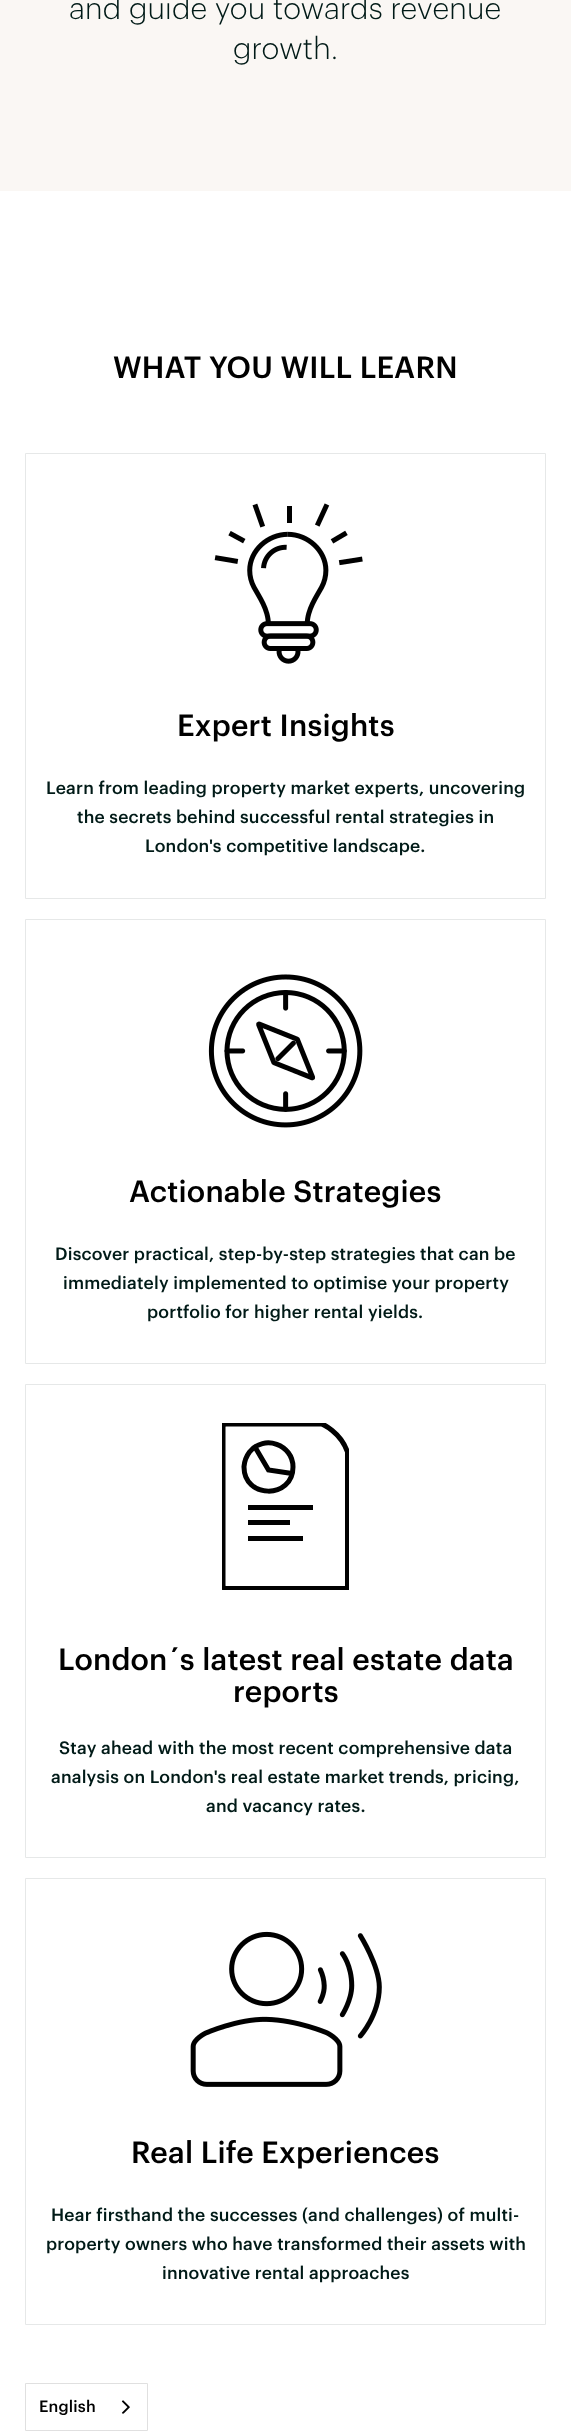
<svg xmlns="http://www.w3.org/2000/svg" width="571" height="2431">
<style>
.a{font:300 30px Graphik;letter-spacing:0.2px;fill:#001a17}
.b{font:500 30px Graphik;letter-spacing:0.2px;fill:#000}
.c{font:500 17.5px Graphik;letter-spacing:0.2px;fill:#001a17}
.d{font:500 16px Graphik;letter-spacing:0.2px;fill:#000}
</style>
<defs>
<clipPath id="clip1"><path d="M222 1423h127v167H222z"/></clipPath>
</defs>
<rect width="100%" height="100%" fill="#fff"/>
<path fill="#faf7f4" d="M0 0h571v191H0z"/>
<path fill="none" stroke="#e6e8e8" d="M25.5 453.5h520v445H25.5z"/>
<image href="1.png" x="214" y="503" width="149" height="161"/>
<path fill="none" stroke="#e6e8e8" d="M25.5 919.5h520v444H25.5z"/>
<image href="2.png" x="208" y="974" width="155" height="154"/>
<path fill="none" stroke="#e6e8e8" d="M25.5 1384.5h520v473H25.5z"/>
<g clip-path="url(#clip1)">
<path fill="none" stroke="#010101" stroke-width="5" d="M345 1588.5h-119.5l-1.5-.5l-1-2v-159.5l1-2l1.5-.5h95.5c1.5 0 19.5 8 26.5 28v134l-.5 2z"/>
</g>
<path fill="none" stroke="#010101" stroke-width="5" d="M293 1467c0 32.5-49.5 32-49-.5c.5-5.5 2.5-10.5 5.5-14.5c14.5-18 43.5-7.5 43.5 15zm-1 6.5l-23.5-3.5l-13.5-23"/>
<path fill="#010101" d="M248 1505h65v5H248z"/>
<path fill="#010101" d="M248 1520h42v5H248z"/>
<path fill="#010101" d="M248 1536h55v5H248z"/>
<path fill="none" stroke="#e6e8e8" d="M25.5 1878.5h520v446H25.5z"/>
<image href="3.png" x="190" y="1931" width="192" height="156"/>
<path fill="none" stroke="#e0e0e0" d="M25.5 2383.5h122v47H25.5z"/>
<image href="4.png" x="121" y="2400" width="9" height="14"/>
<text class="a" x="69" y="19">and guide you towards revenue</text>
<text class="a" x="233" y="59">growth.</text>
<text class="b" x="113" y="378">WHAT YOU WILL LEARN</text>
<text class="b" x="177" y="736">Expert Insights</text>
<text class="c" x="46" y="794">Learn from leading property market experts, uncovering</text>
<text class="c" x="77" y="823">the secrets behind successful rental strategies in</text>
<text class="c" x="145" y="852">London's competitive landscape.</text>
<text class="b" x="129" y="1202">Actionable Strategies</text>
<text class="c" x="55" y="1260">Discover practical, step-by-step strategies that can be</text>
<text class="c" x="63" y="1289">immediately implemented to optimise your property</text>
<text class="c" x="147" y="1318">portfolio for higher rental yields.</text>
<text class="b" x="58" y="1670">London´s latest real estate data</text>
<text class="b" x="233" y="1702">reports</text>
<text class="c" x="59" y="1754">Stay ahead with the most recent comprehensive data</text>
<text class="c" x="51" y="1783">analysis on London's real estate market trends, pricing,</text>
<text class="c" x="206" y="1812">and vacancy rates.</text>
<text class="b" x="131" y="2163">Real Life Experiences</text>
<text class="c" x="51" y="2221">Hear firsthand the successes (and challenges) of multi-</text>
<text class="c" x="46" y="2250">property owners who have transformed their assets with</text>
<text class="c" x="162" y="2279">innovative rental approaches</text>
<text class="d" x="39" y="2412">English</text>
</svg>
